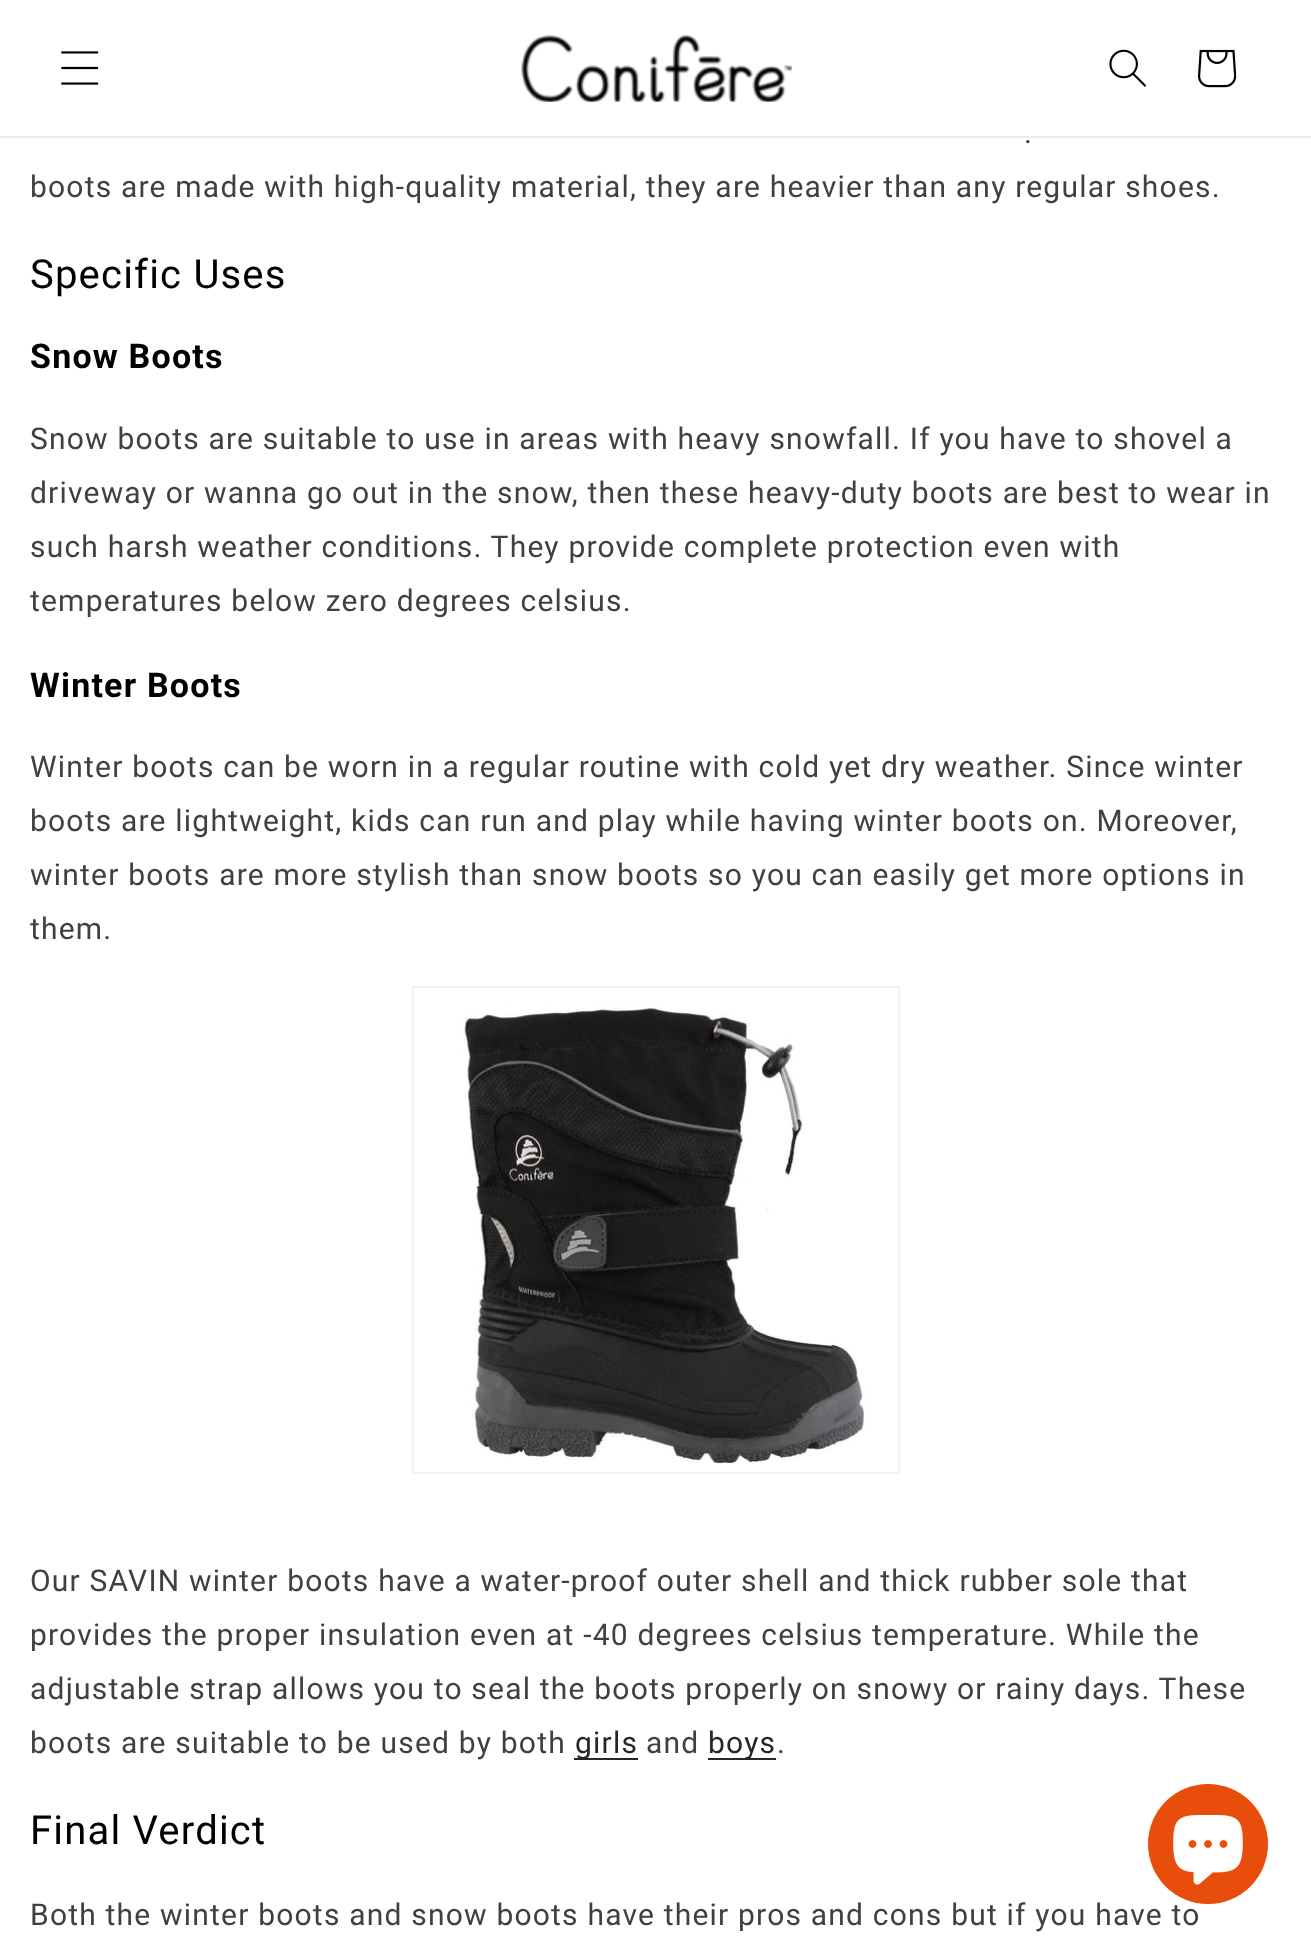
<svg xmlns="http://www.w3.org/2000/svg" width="1311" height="1946">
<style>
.a{font:30px Roboto;letter-spacing:1.2px;fill:#404040}
.b{font:40px Roboto;letter-spacing:1.2px;fill:#000}
.c{font:bold 34px Roboto;letter-spacing:1.2px;fill:#000}
.d{font:30px Roboto;letter-spacing:1.2px;fill:#262626}
</style>
<rect width="100%" height="100%" fill="#fff"/>
<path fill="#ebebeb" d="M0 136h1311v2H0z"/>
<image href="1.png" x="61" y="51" width="38" height="34"/>
<image href="2.png" x="521" y="35" width="271" height="67"/>
<image href="3.png" x="1109" y="49" width="37" height="38"/>
<image href="4.png" x="1198" y="49" width="39" height="39"/>
<path fill="none" stroke="#f2f2f2" stroke-width="2" d="M413 987h486v486H413z"/>
<image href="5.png" x="463" y="1006" width="403" height="458"/>
<path fill="#262626" d="M574 1758h64v2H574z"/>
<path fill="#262626" d="M708 1758h68v2H708z"/>
<text class="a" x="1024" y="143">.</text>
<text class="a" x="30" y="197">boots are made with high-quality material, they are heavier than any regular shoes.</text>
<text class="b" x="30" y="288">Specific Uses</text>
<text class="c" x="30" y="368">Snow Boots</text>
<text class="a" x="30" y="449">Snow boots are suitable to use in areas with heavy snowfall. If you have to shovel a</text>
<text class="a" x="30" y="503">driveway or wanna go out in the snow, then these heavy-duty boots are best to wear in</text>
<text class="a" x="30" y="557">such harsh weather conditions. They provide complete protection even with</text>
<text class="a" x="30" y="611">temperatures below zero degrees celsius.</text>
<text class="c" x="30" y="697">Winter Boots</text>
<text class="a" x="30" y="777">Winter boots can be worn in a regular routine with cold yet dry weather. Since winter</text>
<text class="a" x="30" y="831">boots are lightweight, kids can run and play while having winter boots on. Moreover,</text>
<text class="a" x="30" y="885">winter boots are more stylish than snow boots so you can easily get more options in</text>
<text class="a" x="30" y="939">them.</text>
<text class="a" x="30" y="1591">Our SAVIN winter boots have a water-proof outer shell and thick rubber sole that</text>
<text class="a" x="30" y="1645">provides the proper insulation even at -40 degrees celsius temperature. While the</text>
<text class="a" x="30" y="1699">adjustable strap allows you to seal the boots properly on snowy or rainy days. These</text>
<text class="a" x="30" y="1753">boots are suitable to be used by both</text>
<text class="d" x="575" y="1753">girls</text>
<text class="a" x="646" y="1753">and</text>
<text class="d" x="708" y="1753">boys</text>
<text class="a" x="777" y="1753">.</text>
<text class="b" x="30" y="1844">Final Verdict</text>
<text class="a" x="30" y="1925">Both the winter boots and snow boots have their pros and cons but if you have to</text>
<circle fill="#e94d0c" cx="1208" cy="1844" r="60"/>
<image href="6.png" x="1173" y="1815" width="70" height="70"/>
</svg>
